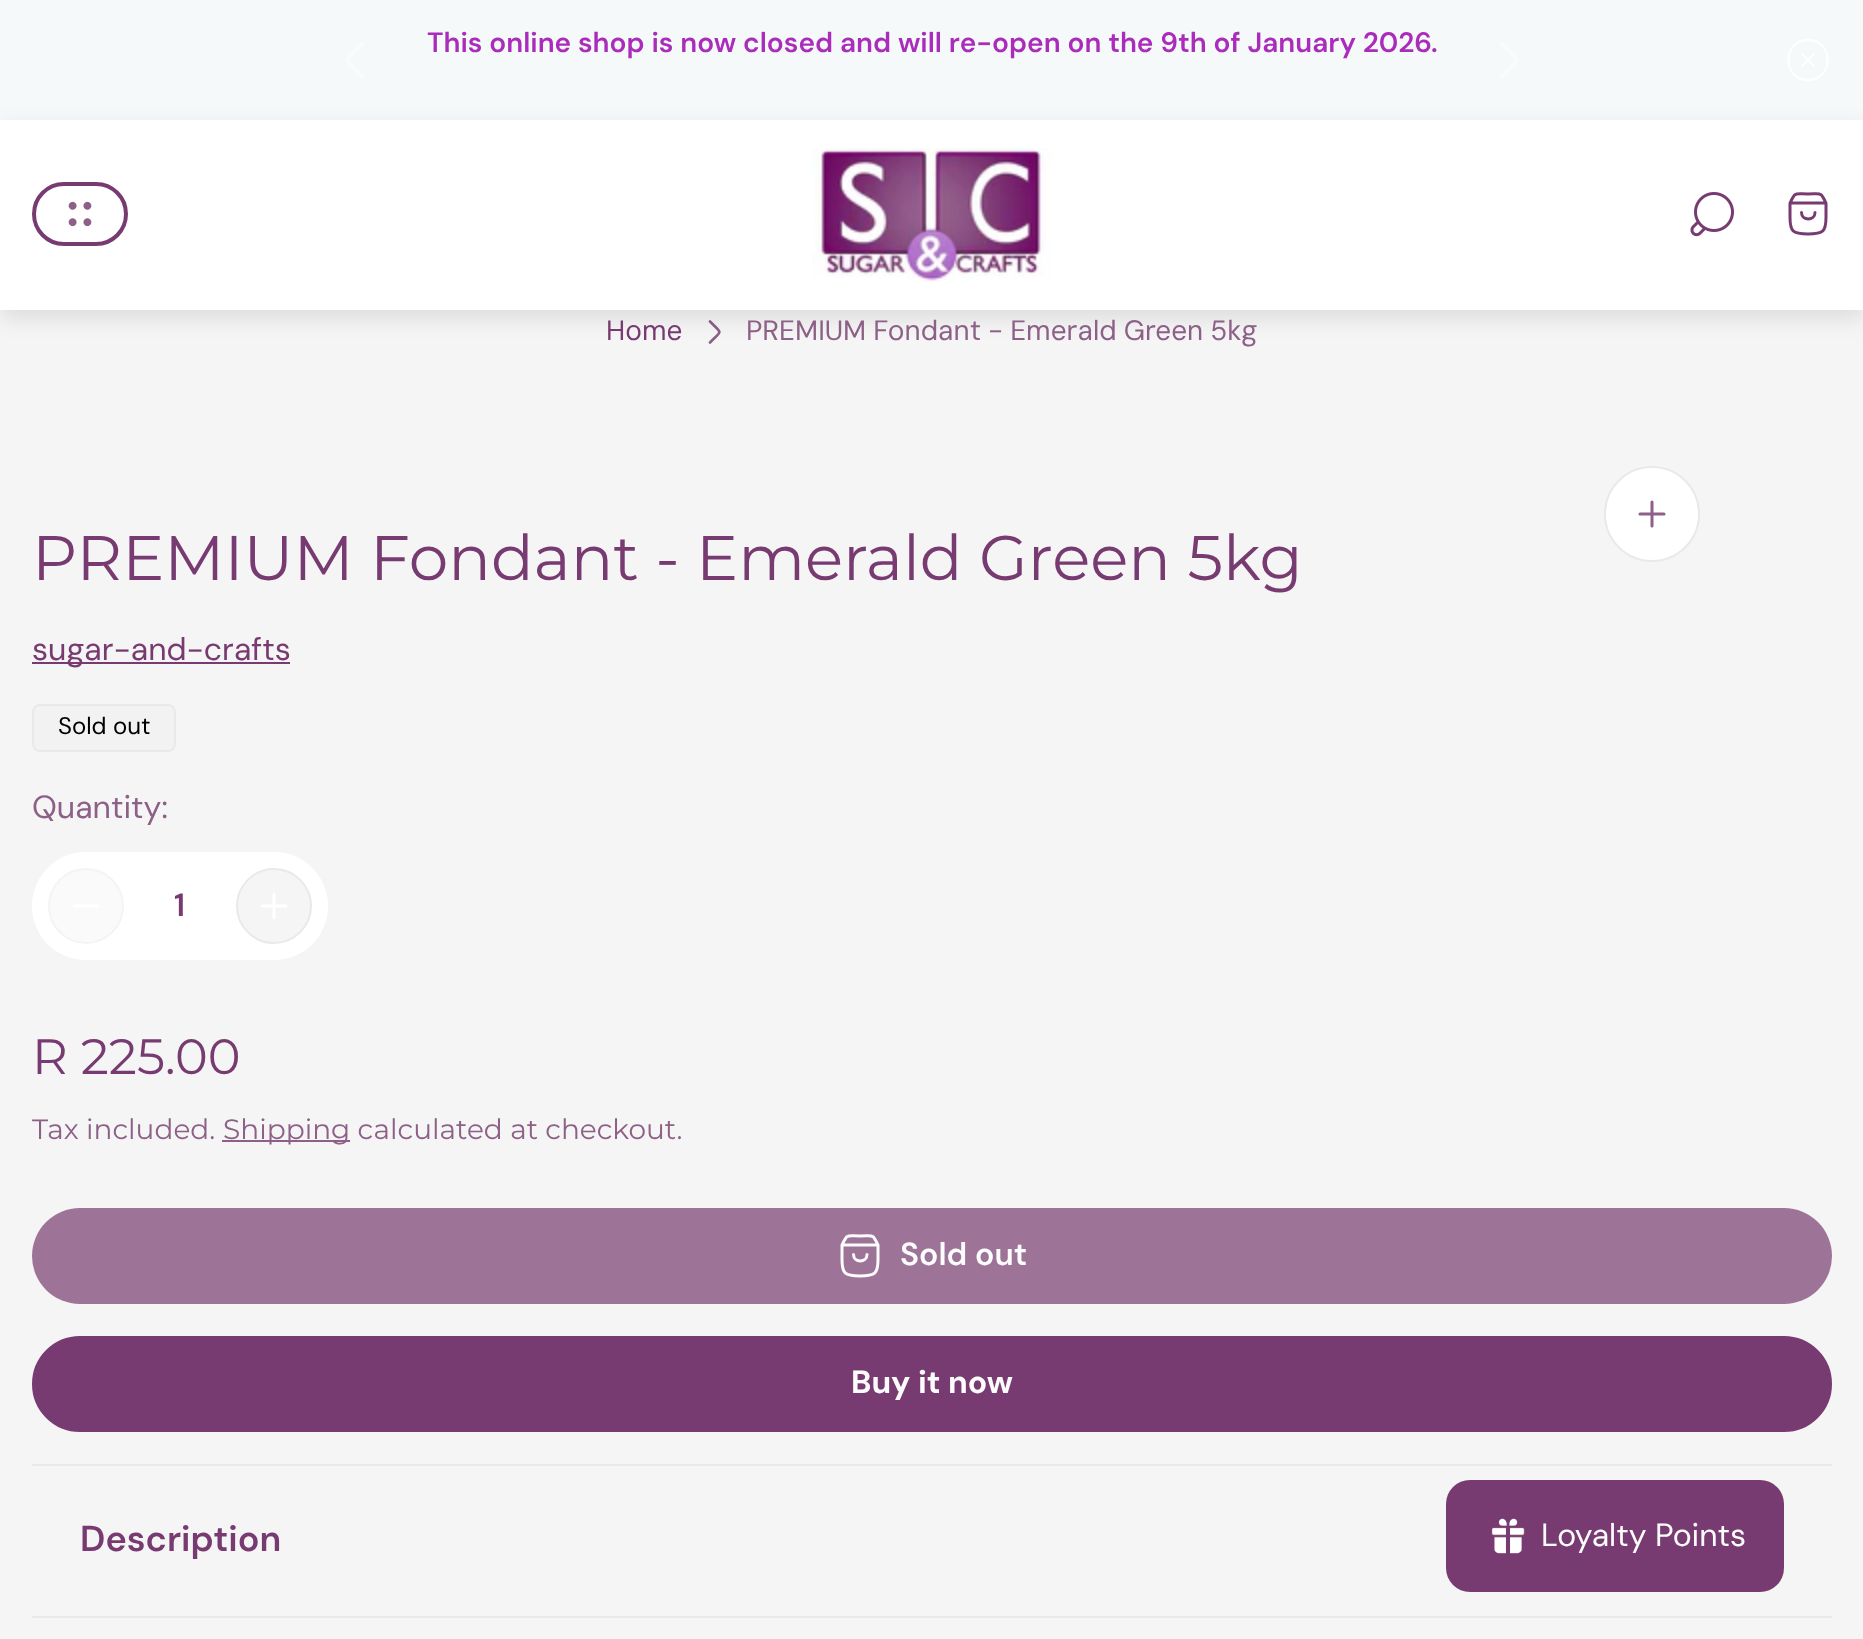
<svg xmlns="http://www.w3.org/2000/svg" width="1863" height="1639">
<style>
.a{font:600 28px 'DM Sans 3';fill:#aa2cba}
.b{font:28px 'DM Sans 3';fill:#783b71}
.c{font:28px 'DM Sans 3';fill:#8d6087}
.d{font:63px Montserrat;fill:#783b71}
.e{font:32px DM Sans;fill:#783b71}
.f{font:24px 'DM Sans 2';fill:#000}
.g{font:32px DM Sans;fill:#8d6087}
.h{font:600 32px 'DM Sans 2';fill:#783b71}
.i{font:49.5px Montserrat;fill:#783b71}
.j{font:28px Montserrat;fill:#8d6087}
.k{font:600 32px 'DM Sans 2';fill:#fcfcfc}
.l{font:bold 32px DM Sans;fill:#fcfcfc}
.m{font:600 36px DM Sans;fill:#783b71}
.n{font:32px DM Sans;fill:#fcfcfc}
</style>
<rect width="100%" height="100%" fill="#f5f5f5"/>
<path fill="#f6f9fa" d="M0 0h1863v120H0z"/>
<path fill="none" stroke="#f9fbfc" stroke-width="4" stroke-linecap="round" stroke-linejoin="round" d="M362 76l-13-13c-1.5-1.5-1.5-4.5 0-6l13-13"/>
<path fill="none" stroke="#f9fbfc" stroke-width="4" stroke-linecap="round" stroke-linejoin="round" d="M1502 76l13-13c1.5-1.5 1.5-4.5 0-6l-13-13"/>
<path fill="none" stroke="#fff" stroke-width="2" stroke-linecap="round" stroke-linejoin="round" d="M1808 80c26 0 26-40 0-40c-26 0-26 40 0 40zm-5.5-14.5l11-11m0 11l-11-11"/>
<path fill="none" stroke="#8d6087" stroke-width="2.7" stroke-linecap="round" stroke-linejoin="round" d="M710 342.5c12.5-12.5 12.5-8.5 0-21"/>
<path fill="#0000001a" filter="blur(11px)" d="M0 128h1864v190H0z"/>
<path fill="#fff" d="M0 120h1863v190H0z"/>
<rect fill="none" stroke="#783b71" stroke-width="4" x="34" y="184" width="92" height="60" rx="30"/>
<image href="1.png" x="68" y="201" width="24" height="26"/>
<image href="2.png" x="812" y="148" width="240" height="134"/>
<image href="3.png" x="1690" y="192" width="44" height="45"/>
<path fill="none" stroke="#783b71" stroke-width="3" stroke-linecap="round" stroke-linejoin="round" d="M1815 212.5c0 8.5-13.5 8.5-13.5 0m-11.5-9.5h36m-36 0v14c0 14.5 2.5 17 18 17c15.5 0 18-2.5 18-17v-14m-36 0c5.5-11.5 4-9 18-9c14 0 12.5-2.5 18 9"/>
<circle fill="#fff" stroke="#e9e9e9" stroke-width="2" cx="1652" cy="514" r="47"/>
<path fill="none" stroke="#8d6087" stroke-width="3" stroke-linecap="round" stroke-linejoin="round" d="M1640 514h24m-12 12v-24"/>
<path fill="#783b71" d="M32 662h258v2H32z"/>
<rect fill="#f2f2f2" stroke="#e9e9e9" stroke-width="2" x="33" y="705" width="142" height="46" rx="7"/>
<rect fill="#fff" x="32" y="852" width="296" height="108" rx="54"/>
<circle fill="#fafafa" stroke="#f4f4f4" stroke-width="2" cx="86" cy="906" r="37"/>
<path fill="none" stroke="#fff" stroke-width="3" stroke-linecap="round" stroke-linejoin="round" d="M74 906h24"/>
<circle fill="#f5f5f5" stroke="#e9e9e9" stroke-width="2" cx="274" cy="906" r="37"/>
<path fill="none" stroke="#fff" stroke-width="3" stroke-linecap="round" stroke-linejoin="round" d="M262 906h24m-12 12v-24"/>
<path fill="#8d6087" d="M222 1140h128v2H222z"/>
<rect fill="#9d7398" x="32" y="1208" width="1800" height="96" rx="48"/>
<path fill="none" stroke="#fcfcfc" stroke-width="3" stroke-linecap="round" stroke-linejoin="round" d="M867 1254.5c0 8.5-13.5 8.5-13.5 0m-11.5-9.5h36m-36 0v14c0 14.5 2.5 17 18 17c15.5 0 18-2.5 18-17v-14m-36 0c5.5-11.5 4-9 18-9c14 0 12.5-2.5 18 9"/>
<rect fill="#783b71" stroke="#783b71" stroke-width="4" x="34" y="1338" width="1796" height="92" rx="46"/>
<path fill="#e9e9e9" d="M32 1464h1800v2H32z"/>
<path fill="#e9e9e9" d="M32 1616h1800v2H32z"/>
<rect fill="#783b71" x="1446" y="1480" width="338" height="112" rx="24"/>
<image href="4.png" x="1491" y="1518" width="34" height="36"/>
<text class="a" x="427" y="52">This online shop is now closed and will re-open on the 9th of January 2026.</text>
<text class="b" x="606" y="340">Home</text>
<text class="c" x="746" y="340" word-spacing="-0.5">PREMIUM Fondant - Emerald Green 5kg</text>
<text class="d" x="32" y="580">PREMIUM Fondant - Emerald Green 5kg</text>
<text class="e" x="32" y="660">sugar-and-crafts</text>
<text class="f" x="58" y="734">Sold out</text>
<text class="g" x="32" y="818">Quantity:</text>
<text class="h" x="174" y="916">1</text>
<text class="i" x="32" y="1074">R 225.00</text>
<text class="j" x="32" y="1139">Tax included.</text>
<text class="j" x="223" y="1139">Shipping calculated at checkout.</text>
<text class="k" x="900" y="1265">Sold out</text>
<text class="l" x="851" y="1393">Buy it now</text>
<text class="m" x="80" y="1551">Description</text>
<text class="n" x="1541" y="1546">Loyalty Points</text>
</svg>
